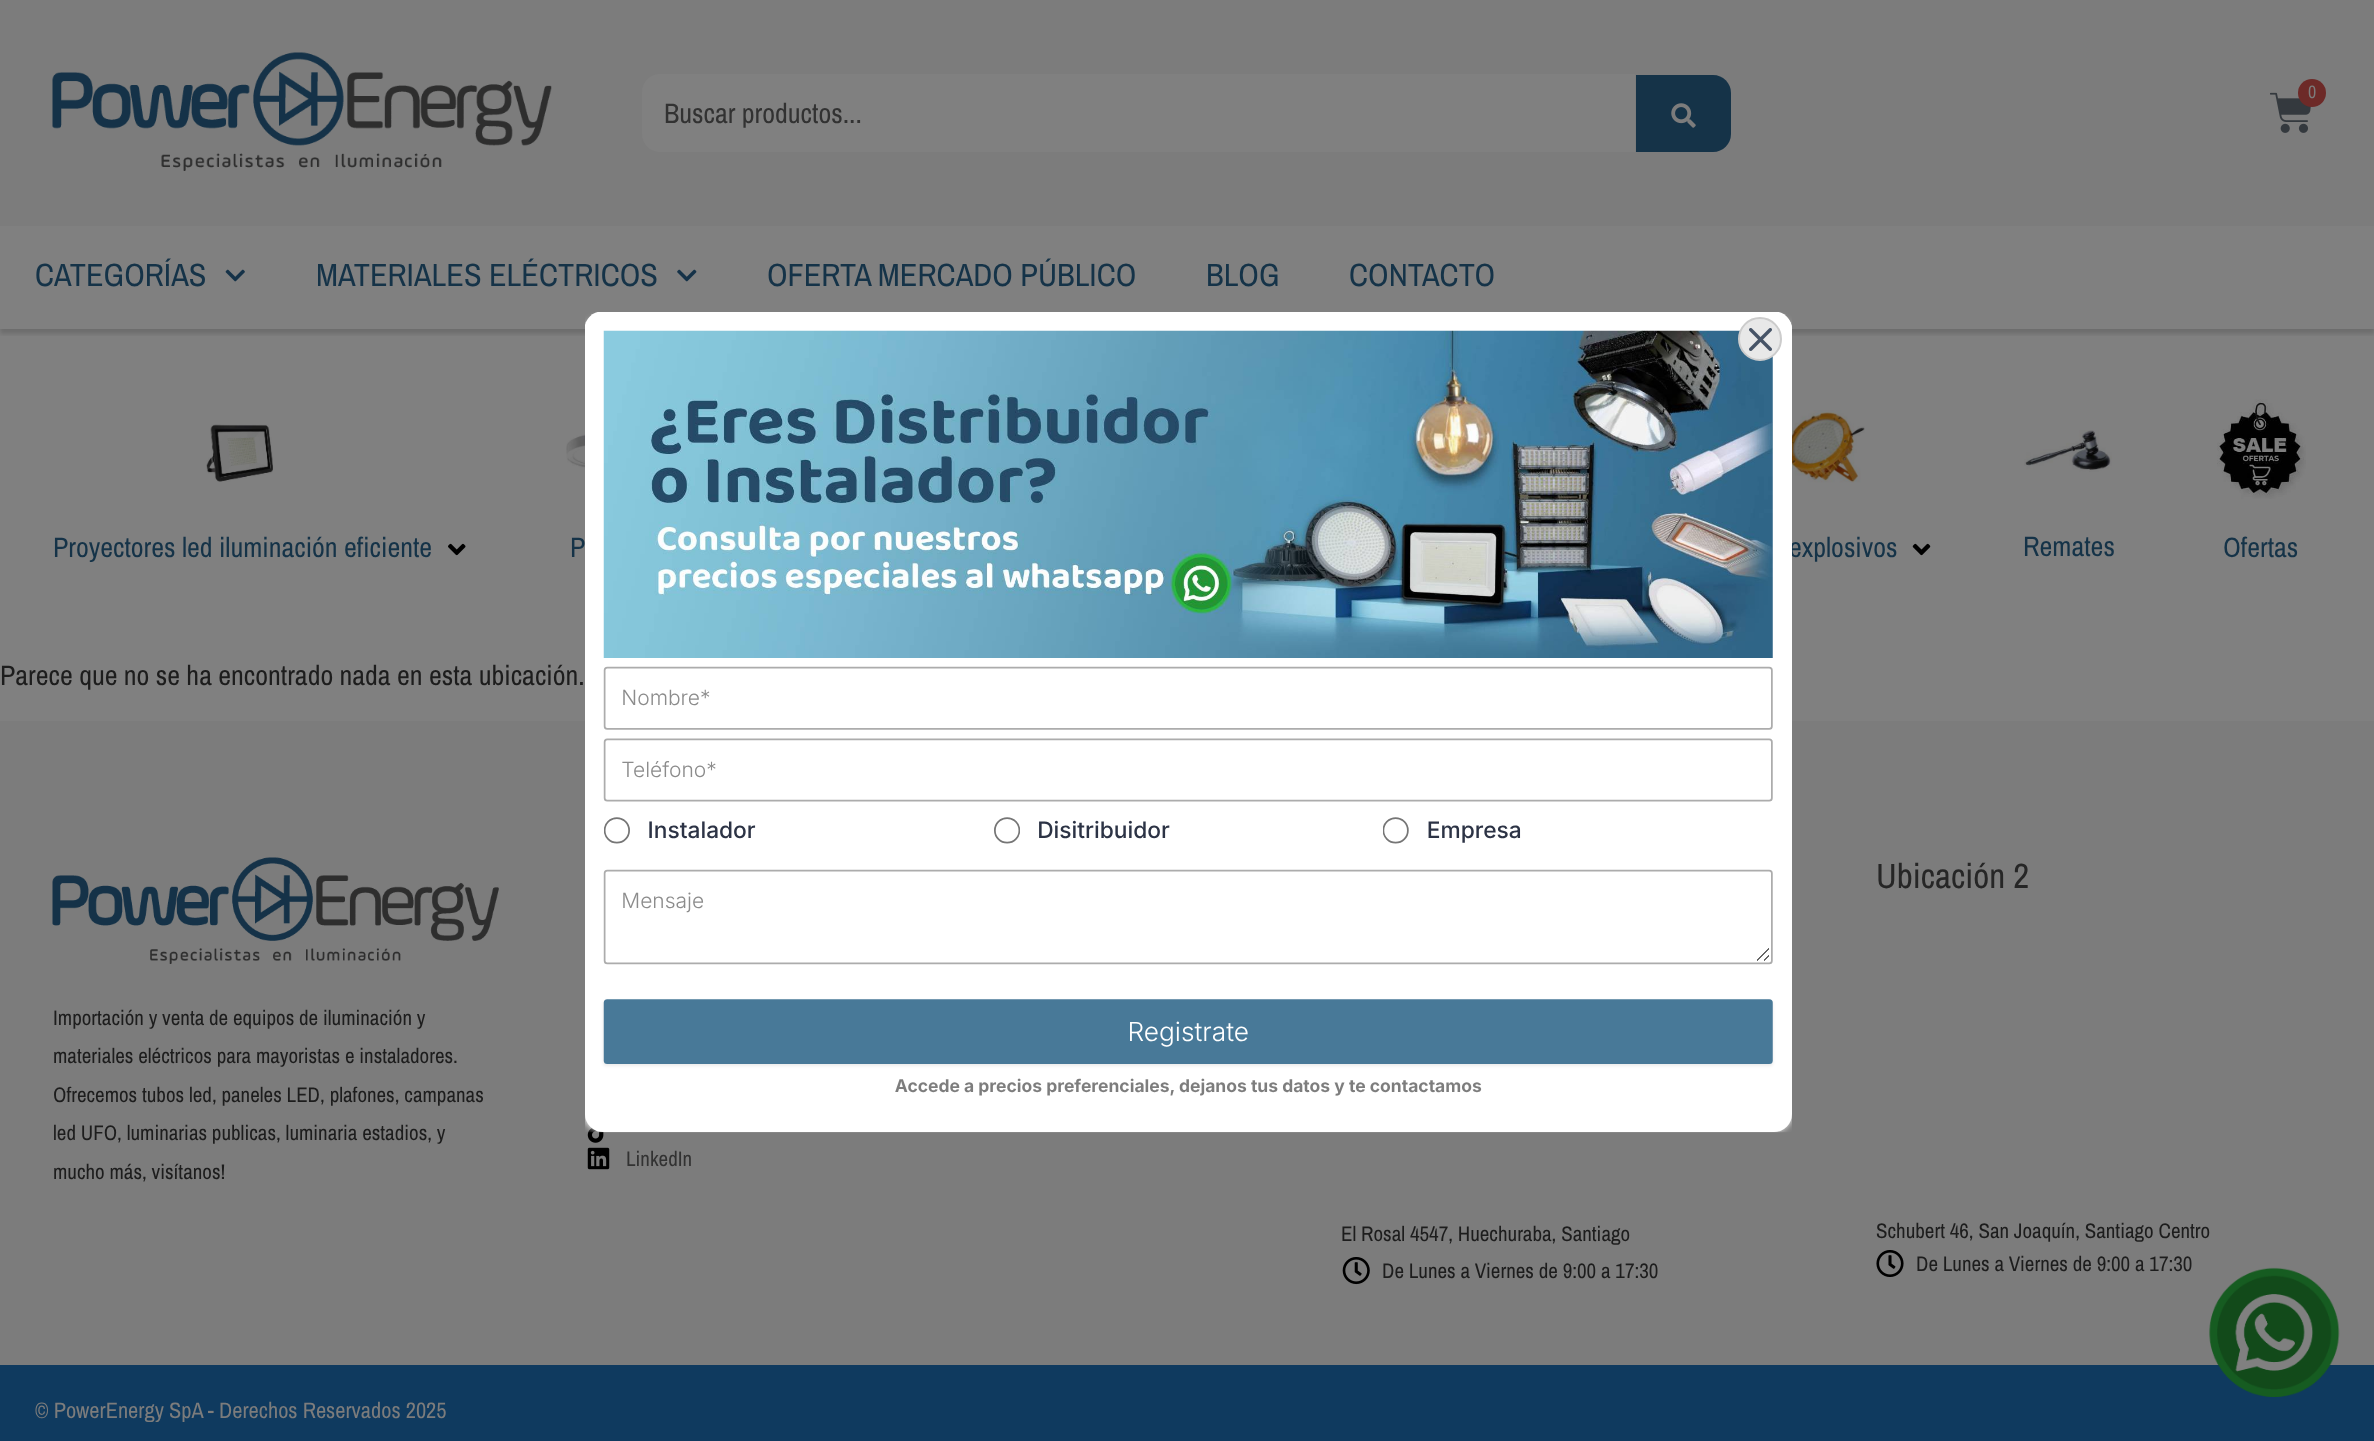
<svg xmlns="http://www.w3.org/2000/svg" width="2374" height="1441">
<style>
.a{font:18px Archivo Narrow;fill:#7c7c7c}
.b{font:28px Archivo Narrow;fill:#323232}
.c{font:32.25px Archivo Narrow;fill:#153348}
.d{font:28px Archivo Narrow;fill:#153348}
.e{font:28px Archivo Narrow;fill:#1d1d1d}
.f{font:21px Archivo Narrow;fill:#1d1d1d}
.g{font:21px Archivo Narrow;fill:#323232}
.h{font:35px Archivo Narrow;fill:#262626}
.i{font:22.4px Archivo Narrow;fill:#7c7c7c}
</style>
<defs>
<clipPath id="clip1"><path d="M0 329h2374v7H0z"/></clipPath>
</defs>
<rect width="100%" height="100%" fill="#808080"/>
<g clip-path="url(#clip1)">
<path fill="#00000026" filter="blur(2px)" d="M0 231h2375v103H0z"/>
</g>
<path fill="#7c7c7c" d="M0 0h2374v226H0z"/>
<image href="1.png" x="52" y="52" width="500" height="119"/>
<image href="2.png" x="2270" y="92" width="41" height="41"/>
<circle fill="#6d2a28" cx="2312" cy="93" r="14"/>
<path fill="#808080" d="M660 74h975v78h-975c-10 0-18-8-18-18v-42c0-10 8-18 18-18z"/>
<path fill="#153348" d="M1636 75h77c10 0 18 8 18 18v41c0 10-8 18-18 18h-77z"/>
<image href="3.png" x="1671" y="103" width="25" height="25"/>
<image href="4.png" x="225" y="269" width="20" height="13"/>
<image href="5.png" x="677" y="269" width="20" height="13"/>
<image href="6.png" x="206" y="424" width="67" height="58"/>
<image href="7.png" x="448" y="543" width="18" height="13"/>
<image href="8.png" x="566" y="433" width="19" height="36"/>
<image href="9.png" x="1792" y="410" width="73" height="73"/>
<image href="10.png" x="1912" y="543" width="19" height="13"/>
<image href="11.png" x="2024" y="430" width="88" height="42"/>
<image href="12.png" x="2217" y="399" width="89" height="100"/>
<path fill="#7c7c7c" d="M0 721h2374v644H0z"/>
<image href="15.png" x="52" y="857" width="447" height="107"/>
<image href="16.png" x="587" y="1128" width="17" height="15"/>
<image href="17.png" x="587" y="1147" width="23" height="23"/>
<image href="18.png" x="1876" y="1250" width="28" height="27"/>
<image href="19.png" x="1342" y="1257" width="28" height="28"/>
<path fill="#0f3a5f" d="M0 1365h2374v76H0z"/>
<image href="20.png" x="2209" y="1267" width="131" height="130"/>
<text class="a" x="2308" y="98">0</text>
<text class="b" x="664" y="123">Buscar productos...</text>
<text class="c" x="35" y="286">CATEGORÍAS</text>
<text class="c" x="316" y="286">MATERIALES ELÉCTRICOS</text>
<text class="c" x="767" y="286">OFERTA MERCADO PÚBLICO</text>
<text class="c" x="1206" y="286">BLOG</text>
<text class="c" x="1349" y="286">CONTACTO</text>
<text class="d" x="53" y="557">Proyectores led iluminación eficiente</text>
<text class="d" x="570" y="557">P</text>
<text class="d" x="1789" y="557">explosivos</text>
<text class="d" x="2023" y="556">Remates</text>
<text class="d" x="2223" y="557">Ofertas</text>
<text class="e" x="0" y="685">Parece que no se ha encontrado nada en esta ubicación.</text>
<rect fill="#fff" x="585" y="312" width="1207" height="820" rx="18"/>
<image href="13.png" x="585" y="312" width="1207" height="821"/>
<circle fill="#e8e8e8" stroke="#ccc" stroke-width="2" cx="1760" cy="339" r="21"/>
<image href="14.png" x="1749" y="328" width="23" height="23"/>
<text class="f" x="53" y="1025">Importación y venta de equipos de iluminación y</text>
<text class="f" x="53" y="1063">materiales eléctricos para mayoristas e instaladores.</text>
<text class="f" x="53" y="1102">Ofrecemos tubos led, paneles LED, plafones, campanas</text>
<text class="f" x="53" y="1140">led UFO, luminarias publicas, luminaria estadios, y</text>
<text class="f" x="53" y="1179">mucho más, visítanos!</text>
<text class="g" x="626" y="1166">LinkedIn</text>
<text class="h" x="1876" y="888">Ubicación 2</text>
<text class="f" x="1876" y="1238">Schubert 46, San Joaquín, Santiago Centro</text>
<text class="f" x="1916" y="1271">De Lunes a Viernes de 9:00 a 17:30</text>
<text class="f" x="1341" y="1241">El Rosal 4547, Huechuraba, Santiago</text>
<text class="f" x="1382" y="1278">De Lunes a Viernes de 9:00 a 17:30</text>
<text class="i" x="35" y="1418">© PowerEnergy SpA - Derechos Reservados 2025</text>
</svg>
